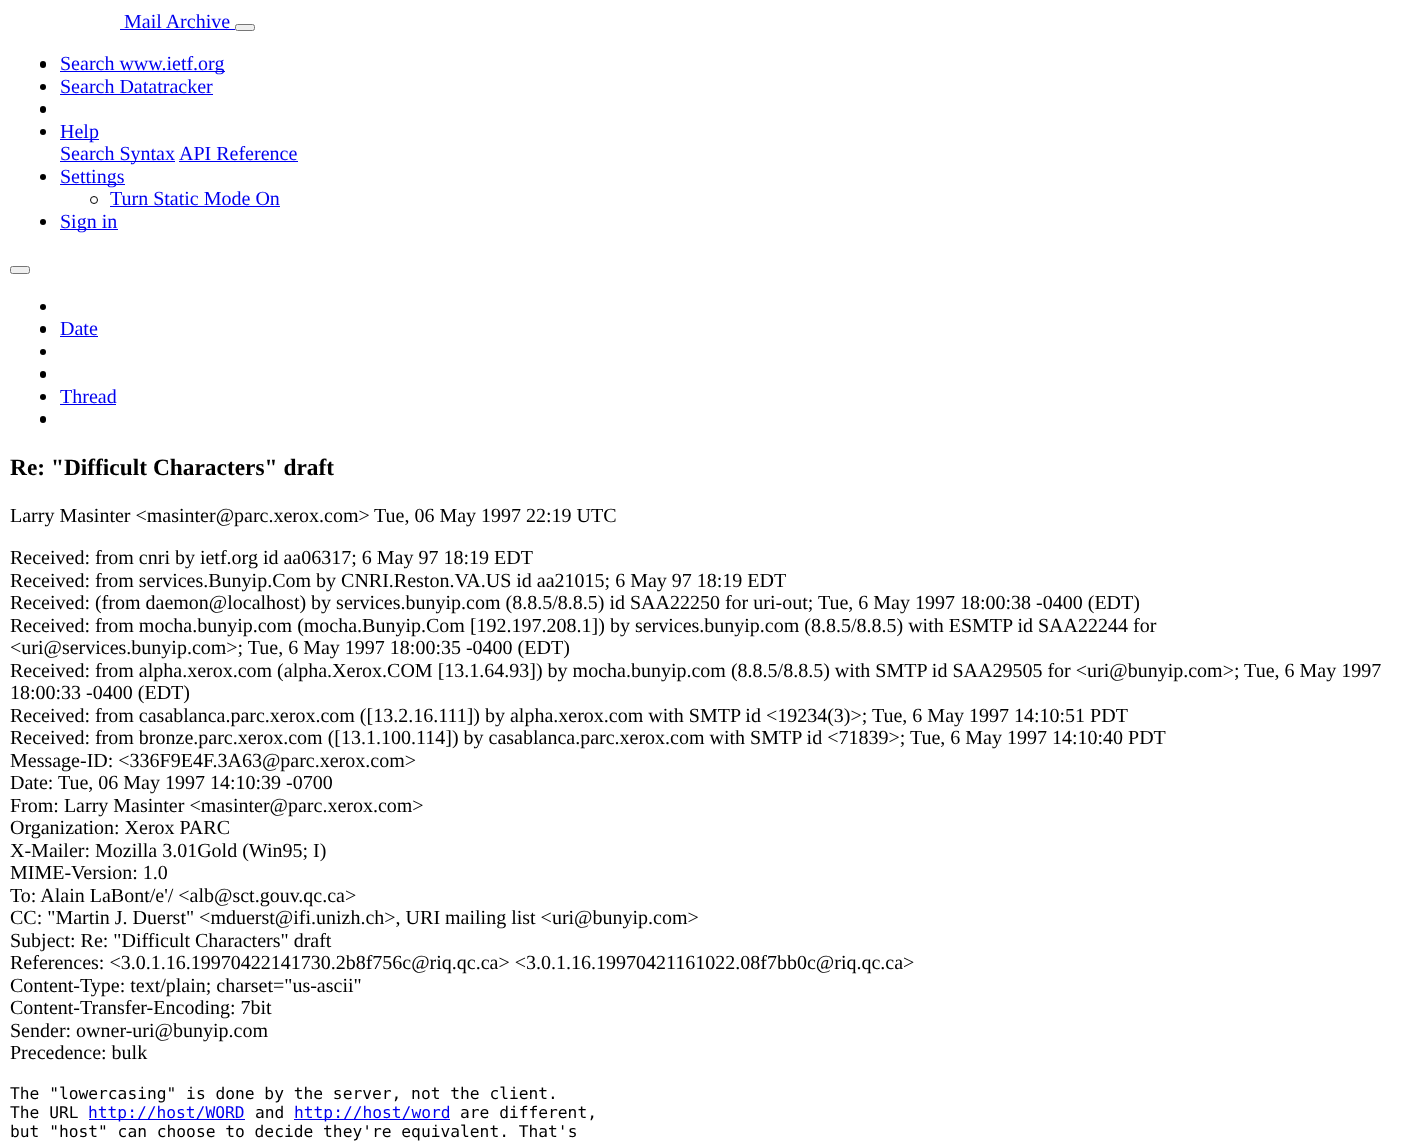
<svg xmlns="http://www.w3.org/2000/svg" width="1402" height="1146">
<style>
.a{font:20px Liberation Serif;fill:#00e}
.b{font:bold 23.4px Liberation Serif;fill:#000}
.c{font:20px Liberation Serif;fill:#000}
.d{font:16.25px DejaVu Sans Mono;fill:#000}
.e{font:16.25px DejaVu Sans Mono;fill:#00e}
</style>
<rect width="100%" height="100%" fill="#fff"/>
<path fill="#00e" d="M120 29h115v1H120z"/>
<rect fill="#efefef" stroke="#767676" x="235.5" y="24.5" width="19" height="6" rx="2"/>
<rect fill="#000" x="40" y="61" width="6" height="7" rx="3"/>
<path fill="#00e" d="M60 71h165v1H60z"/>
<circle fill="#000" cx="43" cy="87" r="3"/>
<path fill="#00e" d="M60 94h153v1H60z"/>
<rect fill="#000" x="40" y="106" width="6" height="7" rx="3"/>
<circle fill="#000" cx="43" cy="132" r="3"/>
<path fill="#00e" d="M60 139h39v1H60z"/>
<path fill="#00e" d="M60 161h115v1H60z"/>
<path fill="#00e" d="M179 161h119v1H179z"/>
<circle fill="#000" cx="43" cy="177" r="3"/>
<path fill="#00e" d="M60 184h65v1H60z"/>
<circle fill="none" stroke="#000" cx="94" cy="200" r="3.5"/>
<path fill="#00e" d="M110 206h170v1H110z"/>
<circle fill="#000" cx="43" cy="222" r="3"/>
<path fill="#00e" d="M60 229h58v1H60z"/>
<rect fill="#efefef" stroke="#767676" x="10.5" y="266.5" width="19" height="7" rx="2"/>
<circle fill="#000" cx="43" cy="307" r="3"/>
<rect fill="#000" x="40" y="326" width="6" height="7" rx="3"/>
<path fill="#00e" d="M60 336h38v1H60z"/>
<circle fill="#000" cx="43" cy="352" r="3"/>
<rect fill="#000" x="40" y="371" width="6" height="7" rx="3"/>
<circle fill="#000" cx="43" cy="397" r="3"/>
<path fill="#00e" d="M60 404h56v1H60z"/>
<rect fill="#000" x="40" y="416" width="6" height="7" rx="3"/>
<path fill="#00e" d="M89 1119h156v1H89z"/>
<path fill="#00e" d="M294 1119h156v1H294z"/>
<text class="a" x="124" y="28">Mail Archive</text>
<text class="a" x="60" y="70">Search www.ietf.org</text>
<text class="a" x="60" y="93">Search Datatracker</text>
<text class="a" x="60" y="138">Help</text>
<text class="a" x="60" y="160">Search Syntax</text>
<text class="a" x="179" y="160">API Reference</text>
<text class="a" x="60" y="183">Settings</text>
<text class="a" x="110" y="205">Turn Static Mode On</text>
<text class="a" x="60" y="228">Sign in</text>
<text class="a" x="60" y="335">Date</text>
<text class="a" x="60" y="403">Thread</text>
<text class="b" x="10" y="475">Re: "Difficult Characters" draft</text>
<text class="c" x="10" y="522">Larry Masinter &lt;masinter@parc.xerox.com&gt;</text>
<text class="c" x="374" y="522">Tue, 06 May 1997 22:19 UTC</text>
<text class="c" x="10" y="564">Received: from cnri by ietf.org id aa06317; 6 May 97 18:19 EDT</text>
<text class="c" x="10" y="587">Received: from services.Bunyip.Com by CNRI.Reston.VA.US id aa21015; 6 May 97 18:19 EDT</text>
<text class="c" x="10" y="609">Received: (from daemon@localhost) by services.bunyip.com (8.8.5/8.8.5) id SAA22250 for uri-out; Tue, 6 May 1997 18:00:38 -0400 (EDT)</text>
<text class="c" x="10" y="632">Received: from mocha.bunyip.com (mocha.Bunyip.Com [192.197.208.1]) by services.bunyip.com (8.8.5/8.8.5) with ESMTP id SAA22244 for</text>
<text class="c" x="10" y="654">&lt;uri@services.bunyip.com&gt;; Tue, 6 May 1997 18:00:35 -0400 (EDT)</text>
<text class="c" x="10" y="677">Received: from alpha.xerox.com (alpha.Xerox.COM [13.1.64.93]) by mocha.bunyip.com (8.8.5/8.8.5) with SMTP id SAA29505 for &lt;uri@bunyip.com&gt;; Tue, 6 May 1997</text>
<text class="c" x="10" y="699">18:00:33 -0400 (EDT)</text>
<text class="c" x="10" y="722">Received: from casablanca.parc.xerox.com ([13.2.16.111]) by alpha.xerox.com with SMTP id &lt;19234(3)&gt;; Tue, 6 May 1997 14:10:51 PDT</text>
<text class="c" x="10" y="744">Received: from bronze.parc.xerox.com ([13.1.100.114]) by casablanca.parc.xerox.com with SMTP id &lt;71839&gt;; Tue, 6 May 1997 14:10:40 PDT</text>
<text class="c" x="10" y="767">Message-ID: &lt;336F9E4F.3A63@parc.xerox.com&gt;</text>
<text class="c" x="10" y="789">Date: Tue, 06 May 1997 14:10:39 -0700</text>
<text class="c" x="10" y="812">From: Larry Masinter &lt;masinter@parc.xerox.com&gt;</text>
<text class="c" x="10" y="834">Organization: Xerox PARC</text>
<text class="c" x="10" y="857">X-Mailer: Mozilla 3.01Gold (Win95; I)</text>
<text class="c" x="10" y="879">MIME-Version: 1.0</text>
<text class="c" x="10" y="902">To: Alain LaBont/e'/ &lt;alb@sct.gouv.qc.ca&gt;</text>
<text class="c" x="10" y="924">CC: "Martin J. Duerst" &lt;mduerst@ifi.unizh.ch&gt;, URI mailing list &lt;uri@bunyip.com&gt;</text>
<text class="c" x="10" y="947">Subject: Re: "Difficult Characters" draft</text>
<text class="c" x="10" y="969">References: &lt;3.0.1.16.19970422141730.2b8f756c@riq.qc.ca&gt; &lt;3.0.1.16.19970421161022.08f7bb0c@riq.qc.ca&gt;</text>
<text class="c" x="10" y="992">Content-Type: text/plain; charset="us-ascii"</text>
<text class="c" x="10" y="1014">Content-Transfer-Encoding: 7bit</text>
<text class="c" x="10" y="1037">Sender: owner-uri@bunyip.com</text>
<text class="c" x="10" y="1059">Precedence: bulk</text>
<text class="d" x="10" y="1099">The "lowercasing" is done by the server, not the client.</text>
<text class="d" x="10" y="1118">The URL</text>
<text class="e" x="88" y="1118">http://host/WORD</text>
<text class="d" x="255" y="1118">and</text>
<text class="e" x="294" y="1118">http://host/word</text>
<text class="d" x="460" y="1118">are different,</text>
<text class="d" x="10" y="1137">but "host" can choose to decide they're equivalent. That's</text>
</svg>
